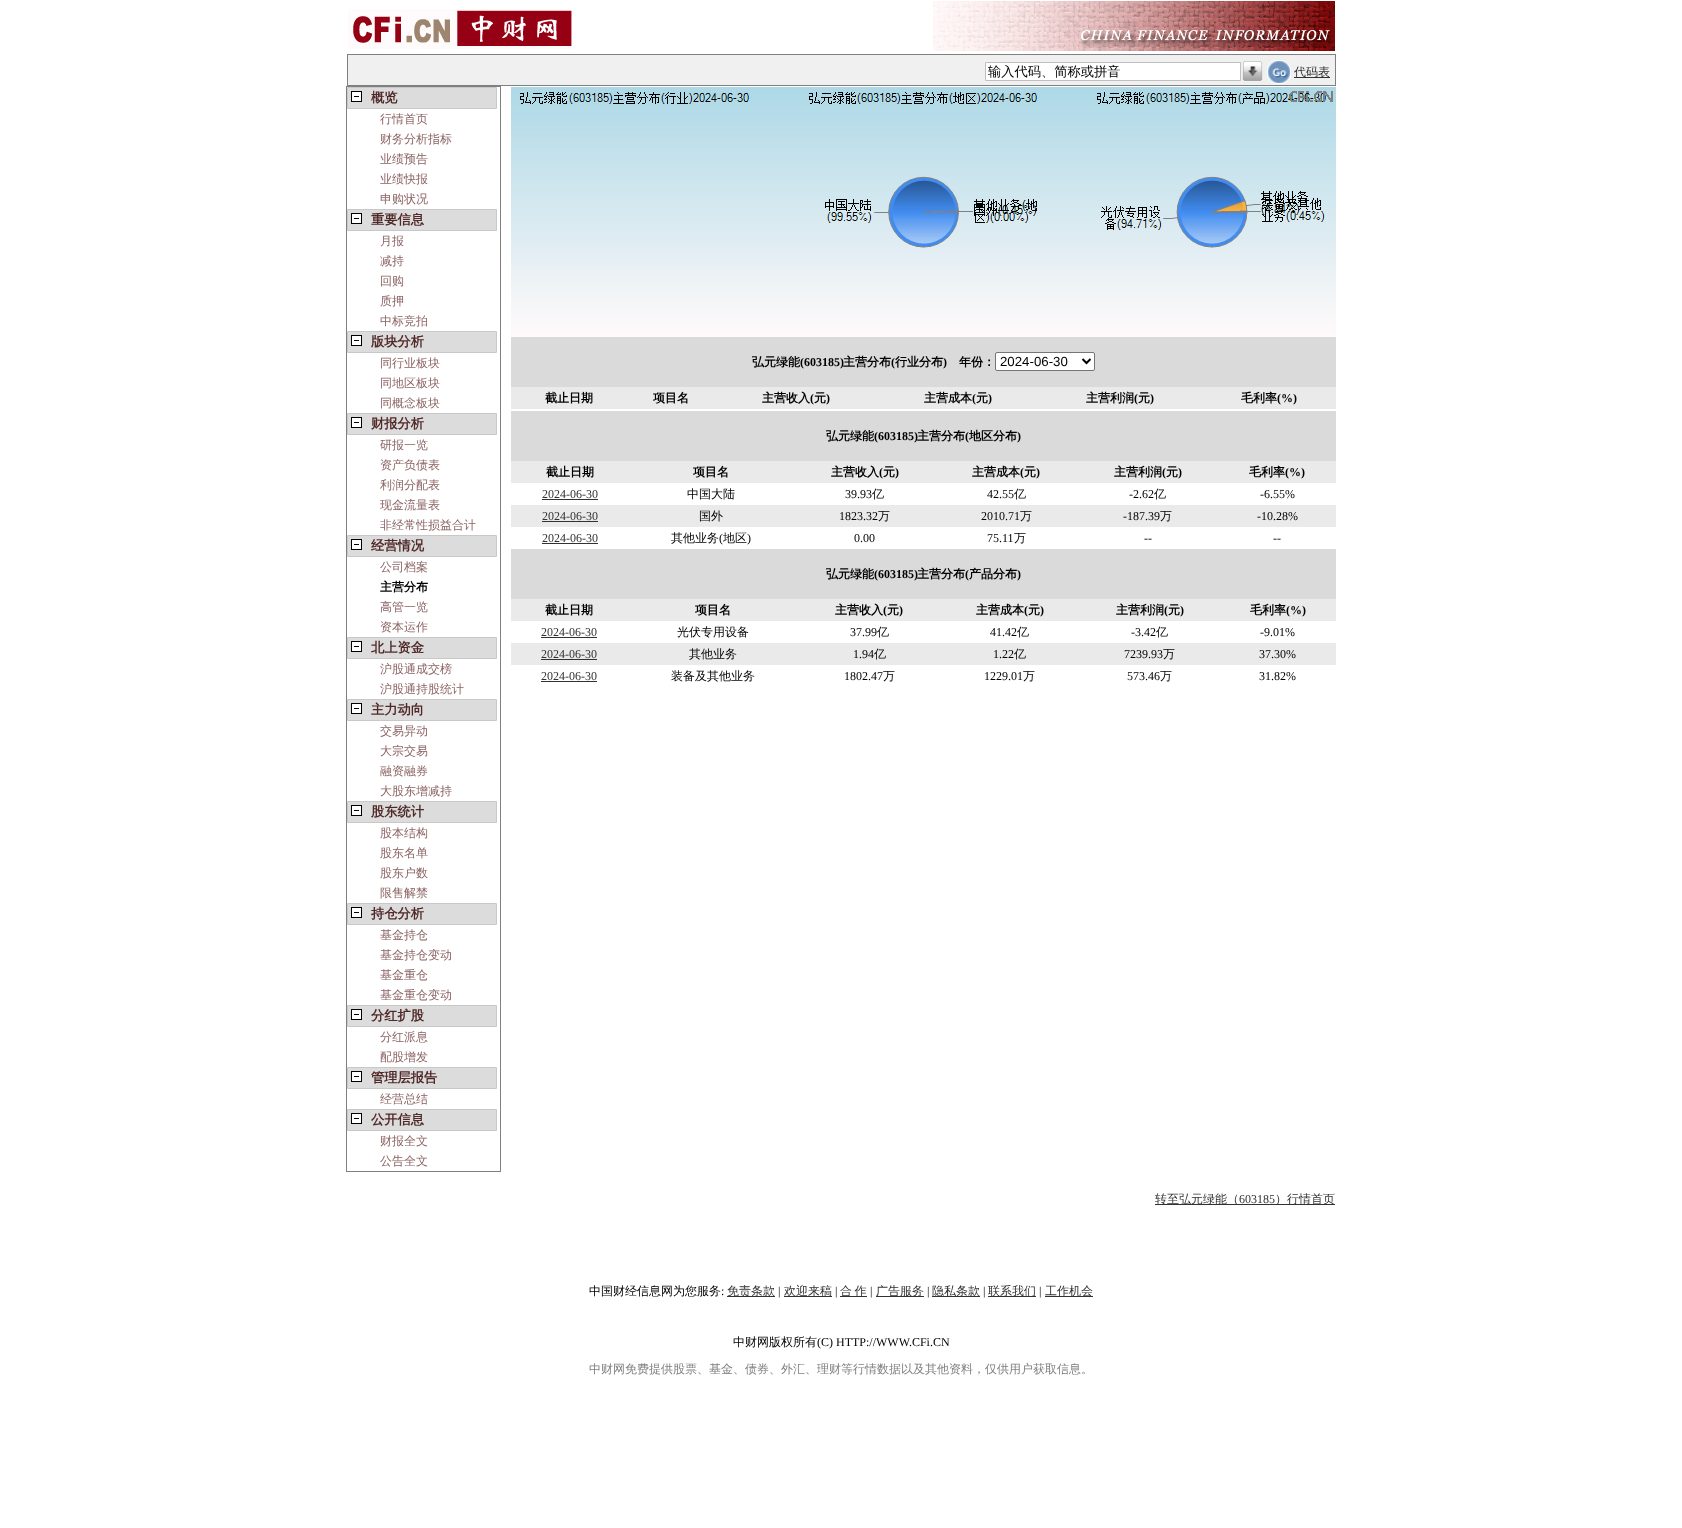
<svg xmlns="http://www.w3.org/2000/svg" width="1682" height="1528">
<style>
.a{font:500 13.25px WenQuanYi Zen Hei;fill:#000}
.b{font:500 12px WenQuanYi Zen Hei;fill:#323232}
.c{font:bold 13.25px WenQuanYi Zen Hei;fill:#502828}
.d{font:500 12px WenQuanYi Zen Hei;fill:#8c6464}
.e{font:bold 12px WenQuanYi Zen Hei;fill:#000}
.f{font:bold 12px Liberation Serif;fill:#000}
.g{font:13.25px Liberation Sans;fill:#000}
.h{font:12px Liberation Serif;fill:#323232}
.i{font:500 12px WenQuanYi Zen Hei;fill:#000}
.j{font:12px Liberation Serif;fill:#000}
.k{font:500 12px WenQuanYi Zen Hei;fill:#808080}
</style>
<rect width="100%" height="100%" fill="#fff"/>
<image href="1.png" x="348" y="9" width="224" height="40"/>
<image href="2.png" x="933" y="1" width="402" height="50"/>
<path fill="#f0f0f0" d="M348 55h987v30H348z"/>
<path fill="#808080" d="M347 54h989v1H347z"/>
<path fill="#808080" d="M1335 54h1v32H1335z"/>
<path fill="#808080" d="M347 85h989v1H347z"/>
<path fill="#808080" d="M347 54h1v32H347z"/>
<path fill="#fff" stroke="#c0c0c0" d="M985.5 62.5h255v18H985.5z"/>
<image href="3.png" x="1242" y="61" width="21" height="20"/>
<image href="4.png" x="1267" y="60" width="24" height="24"/>
<path fill="#323232" d="M1294 77h36v1H1294z"/>
<path fill="#808080" d="M346 86h155v1H346z"/>
<path fill="#808080" d="M500 86h1v1086H500z"/>
<path fill="#808080" d="M346 1171h155v1H346z"/>
<path fill="#808080" d="M346 86h1v1086H346z"/>
<path fill="#dcdcdc" d="M348 88h148v20H348z"/>
<image href="5.png" x="351" y="91" width="11" height="11"/>
<path fill="none" stroke="#c8c8c8" d="M347.5 87.5h149v21H347.5z"/>
<path fill="#dcdcdc" d="M348 210h148v20H348z"/>
<image href="5.png" x="351" y="213" width="11" height="11"/>
<path fill="none" stroke="#c8c8c8" d="M347.5 209.5h149v21H347.5z"/>
<path fill="#dcdcdc" d="M348 332h148v20H348z"/>
<image href="5.png" x="351" y="335" width="11" height="11"/>
<path fill="none" stroke="#c8c8c8" d="M347.5 331.5h149v21H347.5z"/>
<path fill="#dcdcdc" d="M348 414h148v20H348z"/>
<image href="5.png" x="351" y="417" width="11" height="11"/>
<path fill="none" stroke="#c8c8c8" d="M347.5 413.5h149v21H347.5z"/>
<path fill="#dcdcdc" d="M348 536h148v20H348z"/>
<image href="5.png" x="351" y="539" width="11" height="11"/>
<path fill="none" stroke="#c8c8c8" d="M347.5 535.5h149v21H347.5z"/>
<path fill="#dcdcdc" d="M348 638h148v20H348z"/>
<image href="5.png" x="351" y="641" width="11" height="11"/>
<path fill="none" stroke="#c8c8c8" d="M347.5 637.5h149v21H347.5z"/>
<path fill="#dcdcdc" d="M348 700h148v20H348z"/>
<image href="5.png" x="351" y="703" width="11" height="11"/>
<path fill="none" stroke="#c8c8c8" d="M347.5 699.5h149v21H347.5z"/>
<path fill="#dcdcdc" d="M348 802h148v20H348z"/>
<image href="5.png" x="351" y="805" width="11" height="11"/>
<path fill="none" stroke="#c8c8c8" d="M347.5 801.5h149v21H347.5z"/>
<path fill="#dcdcdc" d="M348 904h148v20H348z"/>
<image href="5.png" x="351" y="907" width="11" height="11"/>
<path fill="none" stroke="#c8c8c8" d="M347.5 903.5h149v21H347.5z"/>
<path fill="#dcdcdc" d="M348 1006h148v20H348z"/>
<image href="5.png" x="351" y="1009" width="11" height="11"/>
<path fill="none" stroke="#c8c8c8" d="M347.5 1005.5h149v21H347.5z"/>
<path fill="#dcdcdc" d="M348 1068h148v20H348z"/>
<image href="5.png" x="351" y="1071" width="11" height="11"/>
<path fill="none" stroke="#c8c8c8" d="M347.5 1067.5h149v21H347.5z"/>
<path fill="#dcdcdc" d="M348 1110h148v20H348z"/>
<image href="5.png" x="351" y="1113" width="11" height="11"/>
<path fill="none" stroke="#c8c8c8" d="M347.5 1109.5h149v21H347.5z"/>
<image href="6.png" x="511" y="87" width="825" height="250"/>
<path fill="#dadada" d="M511 337h825v50H511z"/>
<rect fill="#fff" stroke="#767676" x="995.5" y="352.5" width="99" height="18" rx="1.5"/>
<path fill="none" stroke="#000" stroke-width="2" d="M1082.5 359l4 4l4-4"/>
<path fill="#eaeaea" d="M511 387h825v22H511z"/>
<path fill="#dadada" d="M511 411h825v50H511z"/>
<path fill="#eaeaea" d="M511 461h825v22H511z"/>
<path fill="#323232" d="M542 499h56v1H542z"/>
<path fill="#eaeaea" d="M511 505h825v22H511z"/>
<path fill="#323232" d="M542 521h56v1H542z"/>
<path fill="#323232" d="M542 543h56v1H542z"/>
<path fill="#dadada" d="M511 549h825v50H511z"/>
<path fill="#eaeaea" d="M511 599h825v22H511z"/>
<path fill="#323232" d="M541 637h56v1H541z"/>
<path fill="#eaeaea" d="M511 643h825v22H511z"/>
<path fill="#323232" d="M541 659h56v1H541z"/>
<path fill="#323232" d="M541 681h56v1H541z"/>
<path fill="#323232" d="M1155 1204h180v1H1155z"/>
<path fill="#323232" d="M727 1296h48v1H727z"/>
<path fill="#323232" d="M784 1296h48v1H784z"/>
<path fill="#323232" d="M840 1296h27v1H840z"/>
<path fill="#323232" d="M876 1296h48v1H876z"/>
<path fill="#323232" d="M932 1296h48v1H932z"/>
<path fill="#323232" d="M988 1296h48v1H988z"/>
<path fill="#323232" d="M1045 1296h48v1H1045z"/>
<text class="a" x="988" y="76">输入代码、简称或拼音</text>
<text class="b" x="1294" y="76">代码表</text>
<text class="c" x="371" y="102">概览</text>
<text class="d" x="380" y="123">行情首页</text>
<text class="d" x="380" y="143">财务分析指标</text>
<text class="d" x="380" y="163">业绩预告</text>
<text class="d" x="380" y="183">业绩快报</text>
<text class="d" x="380" y="203">申购状况</text>
<text class="c" x="371" y="224">重要信息</text>
<text class="d" x="380" y="245">月报</text>
<text class="d" x="380" y="265">减持</text>
<text class="d" x="380" y="285">回购</text>
<text class="d" x="380" y="305">质押</text>
<text class="d" x="380" y="325">中标竞拍</text>
<text class="c" x="371" y="346">版块分析</text>
<text class="d" x="380" y="367">同行业板块</text>
<text class="d" x="380" y="387">同地区板块</text>
<text class="d" x="380" y="407">同概念板块</text>
<text class="c" x="371" y="428">财报分析</text>
<text class="d" x="380" y="449">研报一览</text>
<text class="d" x="380" y="469">资产负债表</text>
<text class="d" x="380" y="489">利润分配表</text>
<text class="d" x="380" y="509">现金流量表</text>
<text class="d" x="380" y="529">非经常性损益合计</text>
<text class="c" x="371" y="550">经营情况</text>
<text class="d" x="380" y="571">公司档案</text>
<text class="e" x="380" y="591">主营分布</text>
<text class="d" x="380" y="611">高管一览</text>
<text class="d" x="380" y="631">资本运作</text>
<text class="c" x="371" y="652">北上资金</text>
<text class="d" x="380" y="673">沪股通成交榜</text>
<text class="d" x="380" y="693">沪股通持股统计</text>
<text class="c" x="371" y="714">主力动向</text>
<text class="d" x="380" y="735">交易异动</text>
<text class="d" x="380" y="755">大宗交易</text>
<text class="d" x="380" y="775">融资融券</text>
<text class="d" x="380" y="795">大股东增减持</text>
<text class="c" x="371" y="816">股东统计</text>
<text class="d" x="380" y="837">股本结构</text>
<text class="d" x="380" y="857">股东名单</text>
<text class="d" x="380" y="877">股东户数</text>
<text class="d" x="380" y="897">限售解禁</text>
<text class="c" x="371" y="918">持仓分析</text>
<text class="d" x="380" y="939">基金持仓</text>
<text class="d" x="380" y="959">基金持仓变动</text>
<text class="d" x="380" y="979">基金重仓</text>
<text class="d" x="380" y="999">基金重仓变动</text>
<text class="c" x="371" y="1020">分红扩股</text>
<text class="d" x="380" y="1041">分红派息</text>
<text class="d" x="380" y="1061">配股增发</text>
<text class="c" x="371" y="1082">管理层报告</text>
<text class="d" x="380" y="1103">经营总结</text>
<text class="c" x="371" y="1124">公开信息</text>
<text class="d" x="380" y="1145">财报全文</text>
<text class="d" x="380" y="1165">公告全文</text>
<text class="e" x="752" y="366">弘元绿能</text>
<text class="f" x="800" y="366">(603185)</text>
<text class="e" x="843" y="366">主营分布</text>
<text class="f" x="891" y="366">(</text>
<text class="e" x="895" y="366">行业分布</text>
<text class="f" x="943" y="366">)</text>
<text class="e" x="959" y="366">年份：</text>
<text class="g" x="1000" y="366">2024-06-30</text>
<text class="e" x="545" y="402">截止日期</text>
<text class="e" x="653" y="402">项目名</text>
<text class="e" x="762" y="402">主营收入</text>
<text class="f" x="810" y="402">(</text>
<text class="e" x="814" y="402">元</text>
<text class="f" x="826" y="402">)</text>
<text class="e" x="924" y="402">主营成本</text>
<text class="f" x="972" y="402">(</text>
<text class="e" x="976" y="402">元</text>
<text class="f" x="988" y="402">)</text>
<text class="e" x="1086" y="402">主营利润</text>
<text class="f" x="1134" y="402">(</text>
<text class="e" x="1138" y="402">元</text>
<text class="f" x="1150" y="402">)</text>
<text class="e" x="1241" y="402">毛利率</text>
<text class="f" x="1277" y="402">(%)</text>
<text class="e" x="826" y="440">弘元绿能</text>
<text class="f" x="874" y="440">(603185)</text>
<text class="e" x="917" y="440">主营分布</text>
<text class="f" x="965" y="440">(</text>
<text class="e" x="969" y="440">地区分布</text>
<text class="f" x="1017" y="440">)</text>
<text class="e" x="546" y="476">截止日期</text>
<text class="e" x="693" y="476">项目名</text>
<text class="e" x="831" y="476">主营收入</text>
<text class="f" x="879" y="476">(</text>
<text class="e" x="883" y="476">元</text>
<text class="f" x="895" y="476">)</text>
<text class="e" x="972" y="476">主营成本</text>
<text class="f" x="1020" y="476">(</text>
<text class="e" x="1024" y="476">元</text>
<text class="f" x="1036" y="476">)</text>
<text class="e" x="1114" y="476">主营利润</text>
<text class="f" x="1162" y="476">(</text>
<text class="e" x="1166" y="476">元</text>
<text class="f" x="1178" y="476">)</text>
<text class="e" x="1249" y="476">毛利率</text>
<text class="f" x="1285" y="476">(%)</text>
<text class="h" x="542" y="498">2024-06-30</text>
<text class="i" x="687" y="498">中国大陆</text>
<text class="j" x="845" y="498">39.93</text>
<text class="i" x="872" y="498">亿</text>
<text class="j" x="987" y="498">42.55</text>
<text class="i" x="1014" y="498">亿</text>
<text class="j" x="1129" y="498">-2.62</text>
<text class="i" x="1154" y="498">亿</text>
<text class="j" x="1260" y="498">-6.55%</text>
<text class="h" x="542" y="520">2024-06-30</text>
<text class="i" x="699" y="520">国外</text>
<text class="j" x="839" y="520">1823.32</text>
<text class="i" x="878" y="520">万</text>
<text class="j" x="981" y="520">2010.71</text>
<text class="i" x="1020" y="520">万</text>
<text class="j" x="1123" y="520">-187.39</text>
<text class="i" x="1160" y="520">万</text>
<text class="j" x="1257" y="520">-10.28%</text>
<text class="h" x="542" y="542">2024-06-30</text>
<text class="i" x="671" y="542">其他业务</text>
<text class="j" x="719" y="542">(</text>
<text class="i" x="723" y="542">地区</text>
<text class="j" x="747" y="542">)</text>
<text class="j" x="854" y="542">0.00</text>
<text class="j" x="987" y="542">75.11</text>
<text class="i" x="1014" y="542">万</text>
<text class="j" x="1144" y="542">--</text>
<text class="j" x="1273" y="542">--</text>
<text class="e" x="826" y="578">弘元绿能</text>
<text class="f" x="874" y="578">(603185)</text>
<text class="e" x="917" y="578">主营分布</text>
<text class="f" x="965" y="578">(</text>
<text class="e" x="969" y="578">产品分布</text>
<text class="f" x="1017" y="578">)</text>
<text class="e" x="545" y="614">截止日期</text>
<text class="e" x="695" y="614">项目名</text>
<text class="e" x="835" y="614">主营收入</text>
<text class="f" x="883" y="614">(</text>
<text class="e" x="887" y="614">元</text>
<text class="f" x="899" y="614">)</text>
<text class="e" x="976" y="614">主营成本</text>
<text class="f" x="1024" y="614">(</text>
<text class="e" x="1028" y="614">元</text>
<text class="f" x="1040" y="614">)</text>
<text class="e" x="1116" y="614">主营利润</text>
<text class="f" x="1164" y="614">(</text>
<text class="e" x="1168" y="614">元</text>
<text class="f" x="1180" y="614">)</text>
<text class="e" x="1250" y="614">毛利率</text>
<text class="f" x="1286" y="614">(%)</text>
<text class="h" x="541" y="636">2024-06-30</text>
<text class="i" x="677" y="636">光伏专用设备</text>
<text class="j" x="850" y="636">37.99</text>
<text class="i" x="877" y="636">亿</text>
<text class="j" x="990" y="636">41.42</text>
<text class="i" x="1017" y="636">亿</text>
<text class="j" x="1131" y="636">-3.42</text>
<text class="i" x="1156" y="636">亿</text>
<text class="j" x="1260" y="636">-9.01%</text>
<text class="h" x="541" y="658">2024-06-30</text>
<text class="i" x="689" y="658">其他业务</text>
<text class="j" x="853" y="658">1.94</text>
<text class="i" x="874" y="658">亿</text>
<text class="j" x="993" y="658">1.22</text>
<text class="i" x="1014" y="658">亿</text>
<text class="j" x="1124" y="658">7239.93</text>
<text class="i" x="1163" y="658">万</text>
<text class="j" x="1259" y="658">37.30%</text>
<text class="h" x="541" y="680">2024-06-30</text>
<text class="i" x="671" y="680">装备及其他业务</text>
<text class="j" x="844" y="680">1802.47</text>
<text class="i" x="883" y="680">万</text>
<text class="j" x="984" y="680">1229.01</text>
<text class="i" x="1023" y="680">万</text>
<text class="j" x="1127" y="680">573.46</text>
<text class="i" x="1160" y="680">万</text>
<text class="j" x="1259" y="680">31.82%</text>
<text class="b" x="1155" y="1203">转至弘元绿能（</text>
<text class="h" x="1239" y="1203">603185</text>
<text class="b" x="1275" y="1203">）行情首页</text>
<text class="i" x="589" y="1295">中国财经信息网为您服务</text>
<text class="j" x="721" y="1295">:</text>
<text class="b" x="727" y="1295">免责条款</text>
<text class="j" x="778" y="1295">|</text>
<text class="b" x="784" y="1295">欢迎来稿</text>
<text class="j" x="835" y="1295">|</text>
<text class="b" x="840" y="1295" word-spacing="-1">合 作</text>
<text class="j" x="870" y="1295">|</text>
<text class="b" x="876" y="1295">广告服务</text>
<text class="j" x="927" y="1295">|</text>
<text class="b" x="932" y="1295">隐私条款</text>
<text class="j" x="983" y="1295">|</text>
<text class="b" x="988" y="1295">联系我们</text>
<text class="j" x="1039" y="1295">|</text>
<text class="b" x="1045" y="1295">工作机会</text>
<text class="i" x="733" y="1346">中财网版权所有</text>
<text class="j" x="817" y="1346">(C) HTTP://WWW.CFi.CN</text>
<text class="k" x="589" y="1373">中财网免费提供股票、基金、债券、外汇、理财等行情数据以及其他资料，仅供用户获取信息。</text>
</svg>
